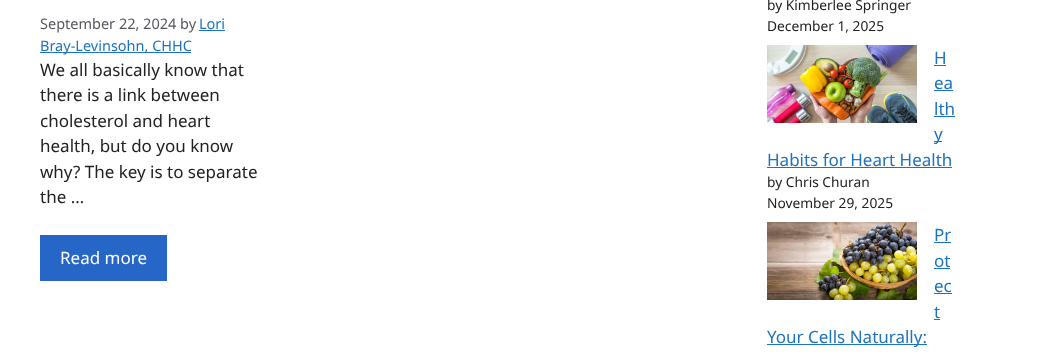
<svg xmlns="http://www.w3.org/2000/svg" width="1049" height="364">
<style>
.a{font:14.5px Noto Sans;fill:#575760}
.b{font:14.5px Noto Sans;fill:#1e73be}
.c{font:17px Noto Sans;fill:#222}
.d{font:17px Noto Sans;fill:#fff}
.e{font:13.75px Noto Sans;fill:#222}
.f{font:17px Noto Sans;fill:#1e73be}
</style>
<rect width="100%" height="100%" fill="#fff"/>
<path fill="#1e73be" d="M199 30h26v1H199z"/>
<path fill="#1e73be" d="M40 52h151v1H40z"/>
<path fill="#2666c6" d="M40 235h127v46H40z"/>
<image href="1.png" x="767" y="45" width="150" height="78"/>
<path fill="#1e73be" d="M934 65h12v1H934z"/>
<path fill="#1e73be" d="M934 90h19v1H934z"/>
<path fill="#1e73be" d="M934 116h21v1H934z"/>
<path fill="#1e73be" d="M934 141h8v1H934z"/>
<path fill="#1e73be" d="M767 167h185v1H767z"/>
<image href="2.png" x="767" y="222" width="150" height="78"/>
<path fill="#1e73be" d="M934 242h17v1H934z"/>
<path fill="#1e73be" d="M934 268h16v1H934z"/>
<path fill="#1e73be" d="M934 293h18v1H934z"/>
<path fill="#1e73be" d="M934 319h6v1H934z"/>
<path fill="#1e73be" d="M767 344h160v1H767z"/>
<text class="a" x="40" y="29">September 22, 2024 by</text>
<text class="b" x="199" y="29">Lori</text>
<text class="b" x="40" y="51">Bray-Levinsohn, CHHC</text>
<text class="c" x="40" y="76">We all basically know that</text>
<text class="c" x="40" y="101">there is a link between</text>
<text class="c" x="40" y="127">cholesterol and heart</text>
<text class="c" x="40" y="152">health, but do you know</text>
<text class="c" x="40" y="178">why? The key is to separate</text>
<text class="c" x="40" y="203">the …</text>
<text class="d" x="60" y="264">Read more</text>
<text class="e" x="767" y="10">by Kimberlee Springer</text>
<text class="e" x="767" y="31">December 1, 2025</text>
<text class="f" x="934" y="64">H</text>
<text class="f" x="934" y="89">ea</text>
<text class="f" x="934" y="115">lth</text>
<text class="f" x="934" y="140">y</text>
<text class="f" x="767" y="166">Habits for Heart Health</text>
<text class="e" x="767" y="187">by Chris Churan</text>
<text class="e" x="767" y="208">November 29, 2025</text>
<text class="f" x="934" y="241">Pr</text>
<text class="f" x="934" y="267">ot</text>
<text class="f" x="934" y="292">ec</text>
<text class="f" x="934" y="318">t</text>
<text class="f" x="767" y="343">Your Cells Naturally:</text>
</svg>
